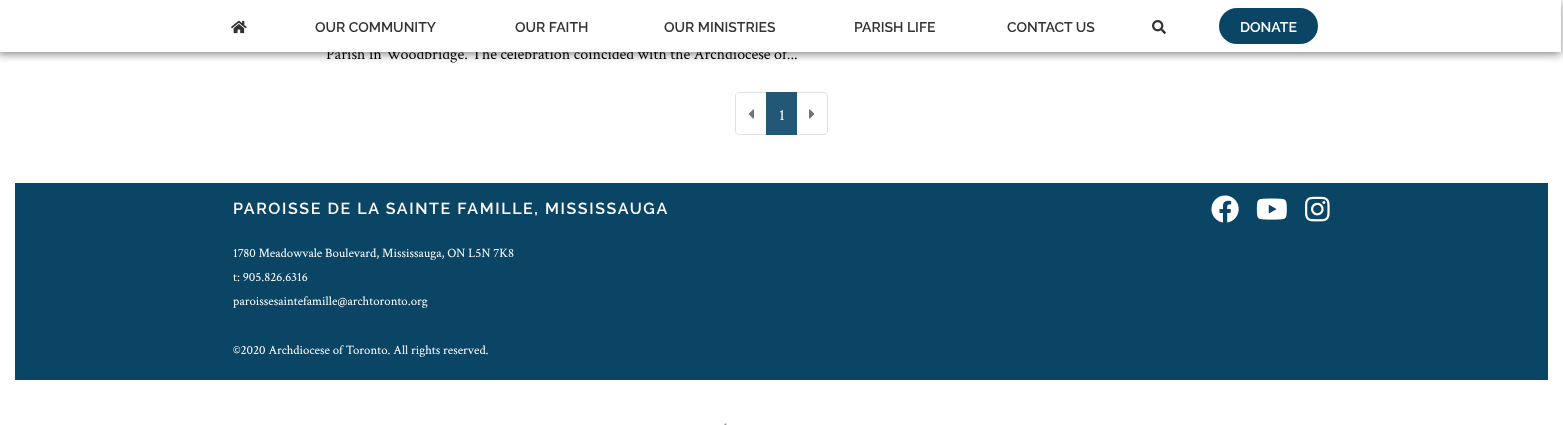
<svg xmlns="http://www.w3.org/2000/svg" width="1563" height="425">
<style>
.a{font:16px Crimson Text;fill:#000}
.b{font:600 14px Raleway;fill:#333}
.c{font:600 14px Raleway;fill:#fff}
.d{font:16px Crimson Text;fill:#fff}
.e{font:600 16px Raleway;letter-spacing:1.6px;fill:#fff}
.f{font:12.8px Crimson Text;fill:#fff}
</style>
<rect width="100%" height="100%" fill="#fff"/>
<path fill="#808080" filter="blur(5px)" d="M-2 2h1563v52H-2z"/>
<path fill="none" stroke="#dee2e6" d="M739 92.5h27.5v42h-27.5c-2 0-3.5-1.5-3.5-3.5v-35c0-2 1.5-3.5 3.5-3.5z"/>
<image href="3.png" x="748" y="109" width="6" height="10"/>
<path fill="none" stroke="#dee2e6" d="M796.5 92.5h27.5c2 0 3.5 1.5 3.5 3.5v35c0 2-1.5 3.5-3.5 3.5h-27.5z"/>
<path fill="#225875" d="M766 92h31v43H766z"/>
<image href="4.png" x="809" y="109" width="6" height="10"/>
<path fill="#0a4565" d="M15 183h1533v197H15z"/>
<image href="5.png" x="1211" y="195" width="28" height="28"/>
<image href="6.png" x="1256" y="198" width="31" height="22"/>
<image href="7.png" x="1305" y="196" width="25" height="26"/>
<image href="8.png" x="724" y="423" width="3" height="2"/>
<text class="a" x="326" y="59">Parish in Woodbridge. The celebration coincided with the Archdiocese of...</text>
<path fill="#fff" d="M0 0h1561v52H0z"/>
<image href="2.png" x="1152" y="20" width="14" height="14"/>
<text class="b" x="1007" y="32">CONTACT US</text>
<text class="b" x="854" y="32">PARISH LIFE</text>
<text class="b" x="664" y="32">OUR MINISTRIES</text>
<text class="b" x="515" y="32">OUR FAITH</text>
<text class="b" x="315" y="32">OUR COMMUNITY</text>
<image href="1.png" x="231" y="20" width="16" height="14"/>
<rect fill="#0a4566" x="1219" y="8" width="99" height="36" rx="18"/>
<text class="c" x="1240" y="32">DONATE</text>
<text class="d" x="779" y="120">1</text>
<text class="e" x="233" y="214">PAROISSE DE LA SAINTE FAMILLE, MISSISSAUGA</text>
<text class="f" x="233" y="257">1780 Meadowvale Boulevard, Mississauga, ON L5N 7K8</text>
<text class="f" x="233" y="281">t: 905.826.6316</text>
<text class="f" x="233" y="305">paroissesaintefamille@archtoronto.org</text>
<text class="f" x="233" y="354">©2020 Archdiocese of Toronto. All rights reserved.</text>
</svg>
